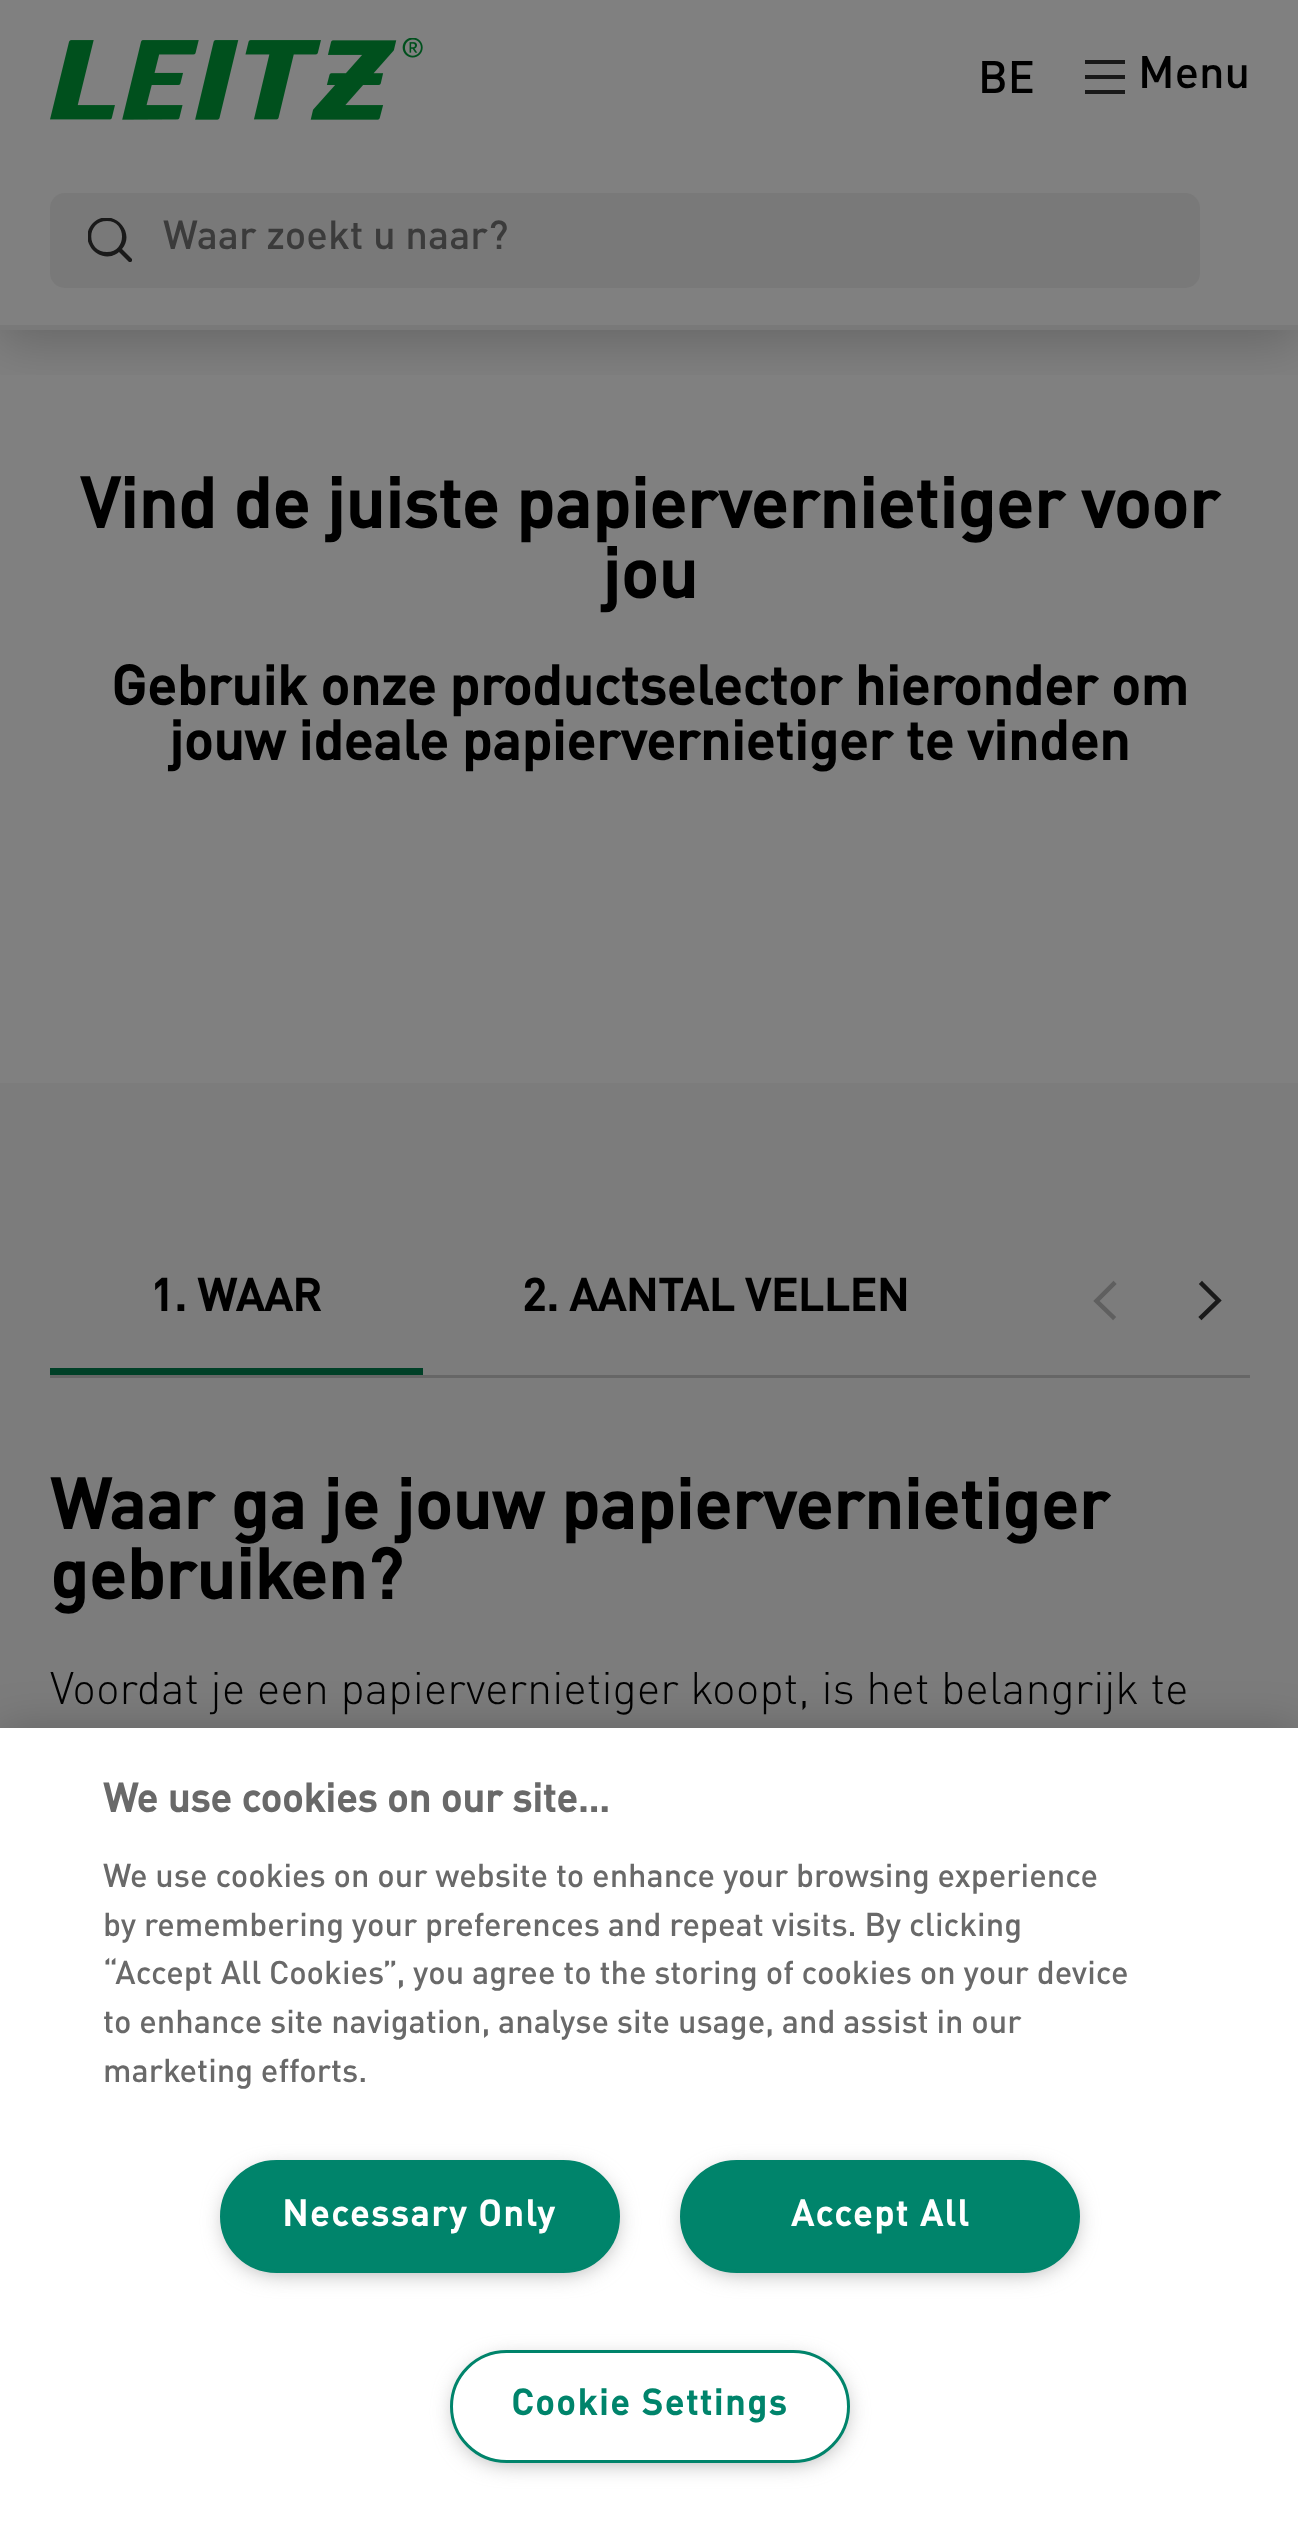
<svg xmlns="http://www.w3.org/2000/svg" width="1298" height="2527">
<style>
.a{font:500 45px DIN;fill:#000}
.b{font:500 40px DIN;fill:#3b3b3b}
.c{font:bold 70px DIN;fill:#000}
.d{font:bold 55px DIN;fill:#000}
.e{font:bold 45px DIN;fill:#000}
.f{font:300 45px DIN;fill:#000}
.g{font:bold 40px DIN;fill:#696969}
.h{font:500 32.5px DIN;fill:#696969}
.i{font:bold 36px DIN;letter-spacing:1.75px;fill:#fff}
.j{font:bold 36px DIN;letter-spacing:1.75px;fill:#00846b}
</style>
<defs>
<clipPath id="clip1"><path d="M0 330h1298v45H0z"/></clipPath>
<clipPath id="clip2"><path d="M88 218h44v44H88z"/></clipPath>
</defs>
<rect width="100%" height="100%" fill="#808080"/>
<g clip-path="url(#clip1)">
<path fill="#00000033" filter="blur(25px)" d="M0 13h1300v330H0z"/>
</g>
<path fill="#797979" d="M0 325h1298v5H0z"/>
<image href="1.png" x="50" y="38" width="373" height="82"/>
<path fill="#1a1a1a" d="M1085 75h40v4H1085z"/>
<path fill="#1a1a1a" d="M1085 60h40v4H1085z"/>
<path fill="#1a1a1a" d="M1085 90h40v4H1085z"/>
<rect fill="#797979" x="50" y="193" width="1150" height="95" rx="15"/>
<g clip-path="url(#clip2)">
<path fill="#1a1a1a" fill-rule="evenodd" d="M119 252l11 11l3-3l-11-11c15-18-11-43-29-26c-17 18 8 44 26 29zm-12-31c20 0 20 31 0 31c-21 0-21-31 0-31z"/>
</g>
<path fill="#7c7c7c" d="M0 1083h1298v645H0z"/>
<path fill="#666" d="M50 1375h1200v3H50z"/>
<path fill="#004027" d="M50 1368h373v7H50z"/>
<path fill="none" stroke="#5f5f5f" stroke-width="4.5" stroke-linecap="square" d="M1113 1317l-16.5-16l17-17"/>
<path fill="none" stroke="#1a1a1a" stroke-width="4.5" stroke-linecap="square" d="M1202 1284l16.5 16.5l-17 16.5"/>
<path fill="#00000033" filter="blur(22.5px)" d="M0 1728h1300v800H0z"/>
<path fill="#fff" d="M0 1728h1298v799H0z"/>
<rect fill="#999" filter="blur(12.5px)" x="228" y="2173" width="385" height="97" rx="48.5"/>
<rect fill="#00846b" stroke="#00846b" stroke-width="3" x="221.5" y="2161.5" width="397" height="110" rx="55"/>
<rect fill="#999" filter="blur(12.5px)" x="688" y="2173" width="385" height="97" rx="48.5"/>
<rect fill="#00846b" stroke="#00846b" stroke-width="3" x="681.5" y="2161.5" width="397" height="110" rx="55"/>
<rect fill="#999" filter="blur(12.5px)" x="458" y="2363" width="385" height="97" rx="48.5"/>
<rect fill="#fff" stroke="#00846b" stroke-width="3" x="451.5" y="2351.5" width="397" height="110" rx="55"/>
<text class="a" x="1138" y="88">Menu</text>
<text class="a" x="978" y="93">BE</text>
<text class="b" x="163" y="249">Waar zoekt u naar?</text>
<text class="c" x="80" y="528">Vind de juiste papiervernietiger voor</text>
<text class="c" x="602" y="598">jou</text>
<text class="d" x="111" y="705">Gebruik onze productselector hieronder om</text>
<text class="d" x="169" y="760">jouw ideale papiervernietiger te vinden</text>
<text class="e" x="150" y="1311">1. WAAR</text>
<text class="e" x="522" y="1311">2. AANTAL VELLEN</text>
<text class="c" x="50" y="1529">Waar ga je jouw papiervernietiger</text>
<text class="c" x="50" y="1599">gebruiken?</text>
<text class="f" x="50" y="1704">Voordat je een papiervernietiger koopt, is het belangrijk te</text>
<text class="g" x="103" y="1812">We use cookies on our site…</text>
<text class="h" x="103" y="1887">We use cookies on our website to enhance your browsing experience</text>
<text class="h" x="103" y="1936">by remembering your preferences and repeat visits. By clicking</text>
<text class="h" x="103" y="1984">“Accept All Cookies”, you agree to the storing of cookies on your device</text>
<text class="h" x="103" y="2033">to enhance site navigation, analyse site usage, and assist in our</text>
<text class="h" x="103" y="2082">marketing efforts.</text>
<text class="i" x="282" y="2226">Necessary Only</text>
<text class="i" x="791" y="2226">Accept All</text>
<text class="j" x="511" y="2415">Cookie Settings</text>
</svg>
